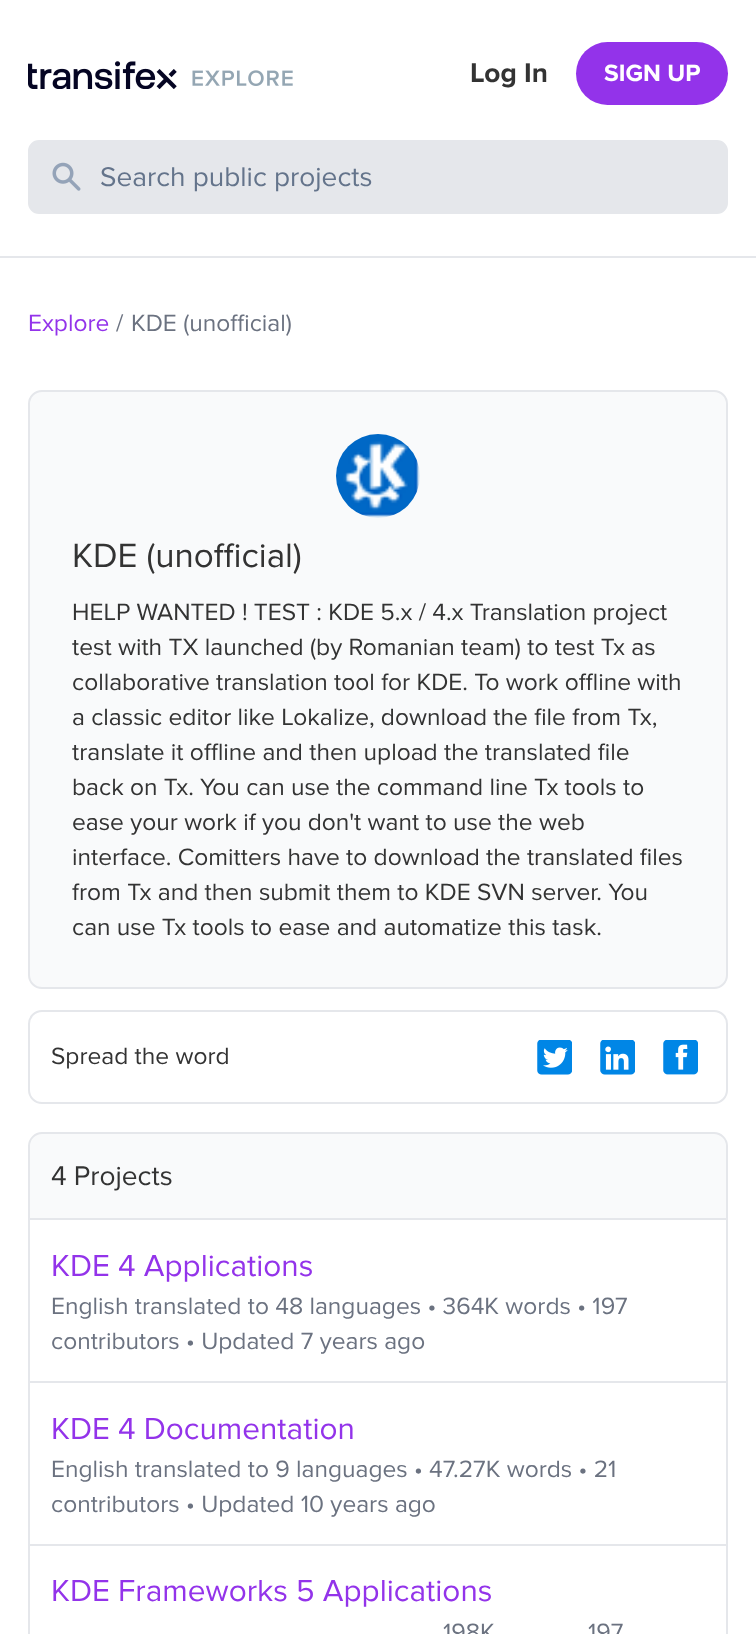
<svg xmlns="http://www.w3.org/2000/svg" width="756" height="1634">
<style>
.a{font:bold 28px Proxima Nova;fill:#333}
.b{font:bold 24.5px Proxima Nova;fill:#fff}
.c{font:28px Proxima Nova;fill:#64748b}
.d{font:24.5px Proxima Nova;fill:#9333ea}
.e{font:24.5px Proxima Nova;fill:#6b7280}
.f{font:35px Proxima Nova;fill:#333}
.g{font:24.5px Proxima Nova;fill:#333}
.h{font:28px Proxima Nova;fill:#333}
.i{font:31.5px Proxima Nova;fill:#9333ea}
</style>
<rect width="100%" height="100%" fill="#fff"/>
<path fill="#e5e7eb" d="M0 256h756v2H0z"/>
<image href="1.png" x="28" y="61" width="265" height="28"/>
<rect fill="#9333ea" x="576" y="42" width="152" height="63" rx="31.5"/>
<rect fill="#e5e7eb" stroke="#e5e7eb" stroke-width="2" x="29" y="141" width="698" height="72" rx="10"/>
<image href="2.png" x="52" y="162" width="29" height="29"/>
<rect fill="#f9fafb" stroke="#e5e7eb" stroke-width="2" x="29" y="391" width="698" height="597" rx="13"/>
<image href="3.png" x="336" y="434" width="84" height="84"/>
<rect fill="none" stroke="#e5e7eb" stroke-width="2" x="29" y="1011" width="698" height="92" rx="13"/>
<image href="4.png" x="537" y="1040" width="35" height="35"/>
<image href="5.png" x="600" y="1040" width="35" height="35"/>
<image href="6.png" x="663" y="1040" width="35" height="35"/>
<path fill="#f9fafb" stroke="#e5e7eb" stroke-width="2" d="M42 1133h672c7 0 13 6 13 13v73h-698v-73c0-7 6-13 13-13z"/>
<path fill="#e5e7eb" d="M726 1220h2v325H726z"/>
<path fill="#e5e7eb" d="M28 1381h700v2H28z"/>
<path fill="#e5e7eb" d="M28 1220h2v163H28z"/>
<path fill="#e5e7eb" d="M28 1544h700v2H28z"/>
<path fill="#e5e7eb" d="M28 1383h2v251H28z"/>
<path fill="#e5e7eb" d="M726 1545h2v89H726z"/>
<text class="a" x="470" y="82">Log In</text>
<text class="b" x="604" y="81">SIGN UP</text>
<text class="c" x="100" y="186">Search public projects</text>
<text class="d" x="28" y="331">Explore</text>
<text class="e" x="116" y="331">/</text>
<text class="e" x="131" y="331">KDE (unofficial)</text>
<text class="f" x="72" y="567">KDE (unofficial)</text>
<text class="g" x="72" y="620">HELP WANTED ! TEST : KDE 5.x / 4.x Translation project</text>
<text class="g" x="72" y="655">test with TX launched (by Romanian team) to test Tx as</text>
<text class="g" x="72" y="690">collaborative translation tool for KDE. To work offline with</text>
<text class="g" x="72" y="725">a classic editor like Lokalize, download the file from Tx,</text>
<text class="g" x="72" y="760">translate it offline and then upload the translated file</text>
<text class="g" x="72" y="795">back on Tx. You can use the command line Tx tools to</text>
<text class="g" x="72" y="830">ease your work if you don't want to use the web</text>
<text class="g" x="72" y="865">interface. Comitters have to download the translated files</text>
<text class="g" x="72" y="900">from Tx and then submit them to KDE SVN server. You</text>
<text class="g" x="72" y="935">can use Tx tools to ease and automatize this task.</text>
<text class="g" x="51" y="1064">Spread the word</text>
<text class="h" x="51" y="1185">4 Projects</text>
<text class="i" x="51" y="1276">KDE 4 Applications</text>
<text class="e" x="51" y="1314">English translated to 48 languages • 364K words • 197</text>
<text class="e" x="51" y="1349">contributors • Updated 7 years ago</text>
<text class="i" x="51" y="1439">KDE 4 Documentation</text>
<text class="e" x="51" y="1477">English translated to 9 languages • 47.27K words • 21</text>
<text class="e" x="51" y="1512">contributors • Updated 10 years ago</text>
<text class="i" x="51" y="1601">KDE Frameworks 5 Applications</text>
<text class="e" x="443" y="1640">198K</text>
<text class="e" x="588" y="1640">197</text>
</svg>
